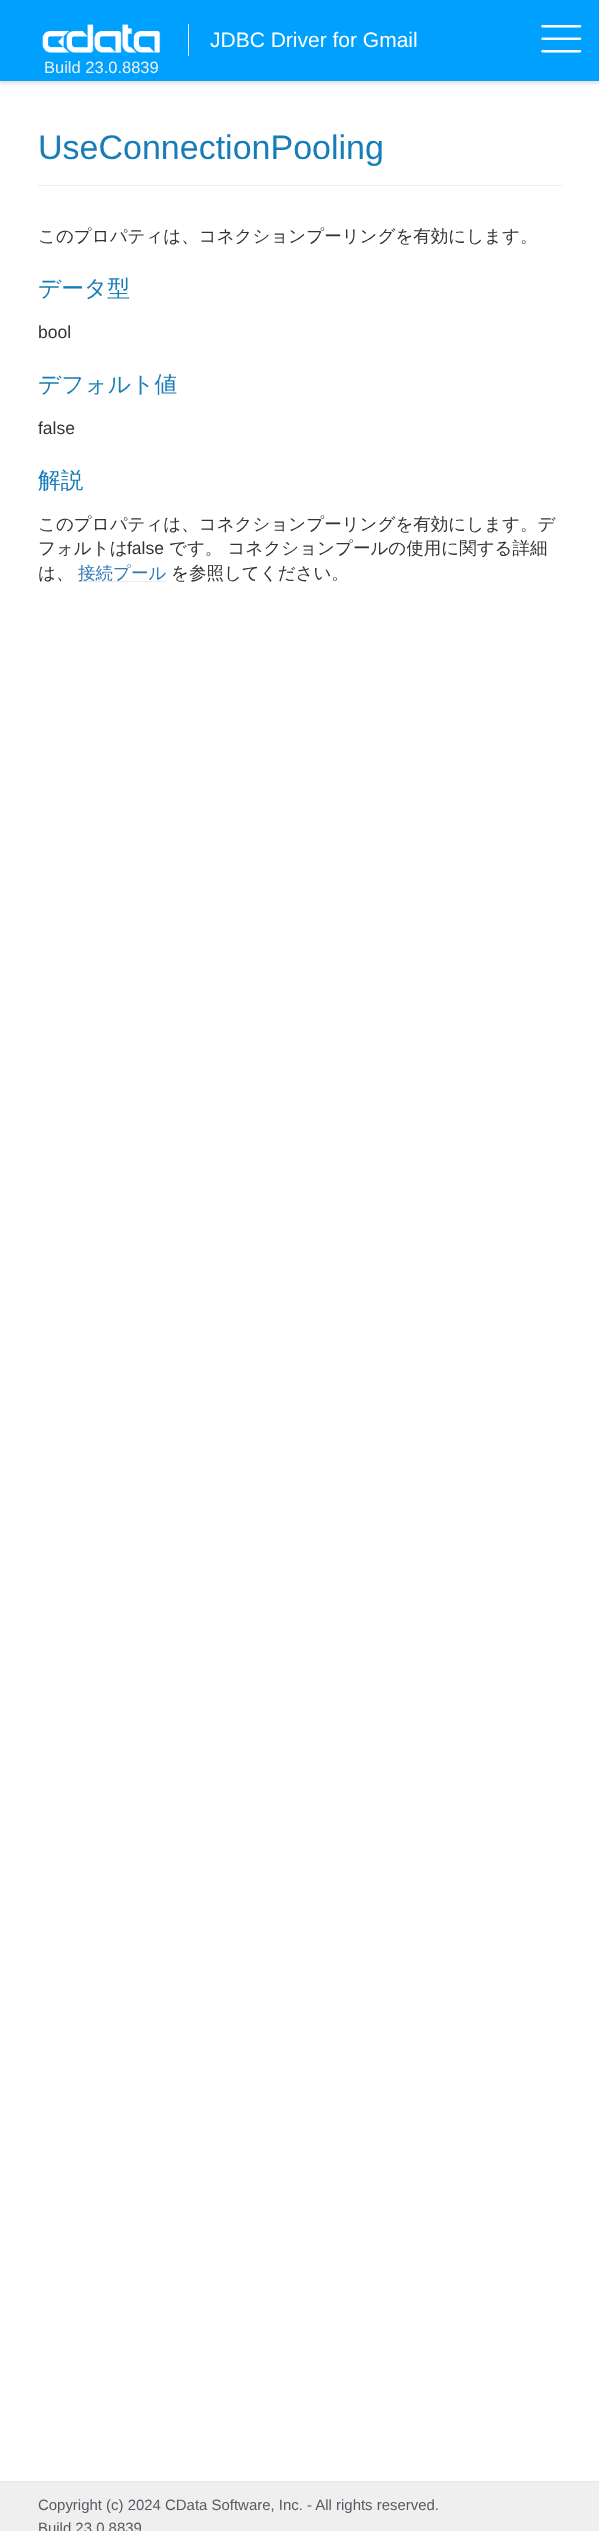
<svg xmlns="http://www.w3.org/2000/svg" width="599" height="2531">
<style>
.a{font:21px Liberation Sans;fill:#fff}
.b{font:16.5px Liberation Sans;fill:#efefef}
.c{font:34px Liberation Sans;fill:#177cb8}
.d{font:500 17.5px WenQuanYi Zen Hei;fill:#333}
.e{font:500 22.75px WenQuanYi Zen Hei;fill:#177cb8}
.f{font:17.5px Liberation Sans;fill:#333}
.g{font:500 17.5px WenQuanYi Zen Hei;fill:#337ab7}
.h{font:14.95px Liberation Sans;fill:#5c5962}
</style>
<rect width="100%" height="100%" fill="#fff"/>
<path fill="#0000001a" filter="blur(1px)" d="M0 3h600v81H0z"/>
<path fill="#00a0ff" d="M0 0h599v81H0z"/>
<image href="1.png" x="42" y="24" width="119" height="29"/>
<image href="2.png" x="541" y="25" width="41" height="28"/>
<path fill="#fff" d="M188 24h1v32H188z"/>
<path fill="#eeebee" d="M38 185h525v1H38z"/>
<path fill="#eeebee" d="M78 581h88v1H78z"/>
<path fill="#efefef" d="M0 2482h599v49H0z"/>
<path fill="#e8e8e8" d="M0 2481h599v1H0z"/>
<text class="a" x="210" y="47">JDBC Driver for Gmail</text>
<text class="b" x="44" y="73">Build 23.0.8839</text>
<text class="c" x="38" y="159">UseConnectionPooling</text>
<text class="d" x="38" y="242">このプロパティは、コネクションプーリングを有効にします。</text>
<text class="e" x="38" y="296">データ型</text>
<text class="f" x="38" y="338">bool</text>
<text class="e" x="38" y="392">デフォルト値</text>
<text class="f" x="38" y="434">false</text>
<text class="e" x="38" y="488">解説</text>
<text class="d" x="38" y="530">このプロパティは、コネクションプーリングを有効にします。デ</text>
<text class="d" x="38" y="554">フォルトは</text>
<text class="f" x="127" y="554">false</text>
<text class="d" x="169" y="554">です。 コネクションプールの使用に関する詳細</text>
<text class="d" x="38" y="579">は、</text>
<text class="g" x="78" y="579">接続プール</text>
<text class="d" x="171" y="579">を参照してください。</text>
<text class="h" x="38" y="2510">Copyright (c) 2024 CData Software, Inc. - All rights reserved.</text>
<text class="h" x="38" y="2533">Build 23.0.8839</text>
</svg>
